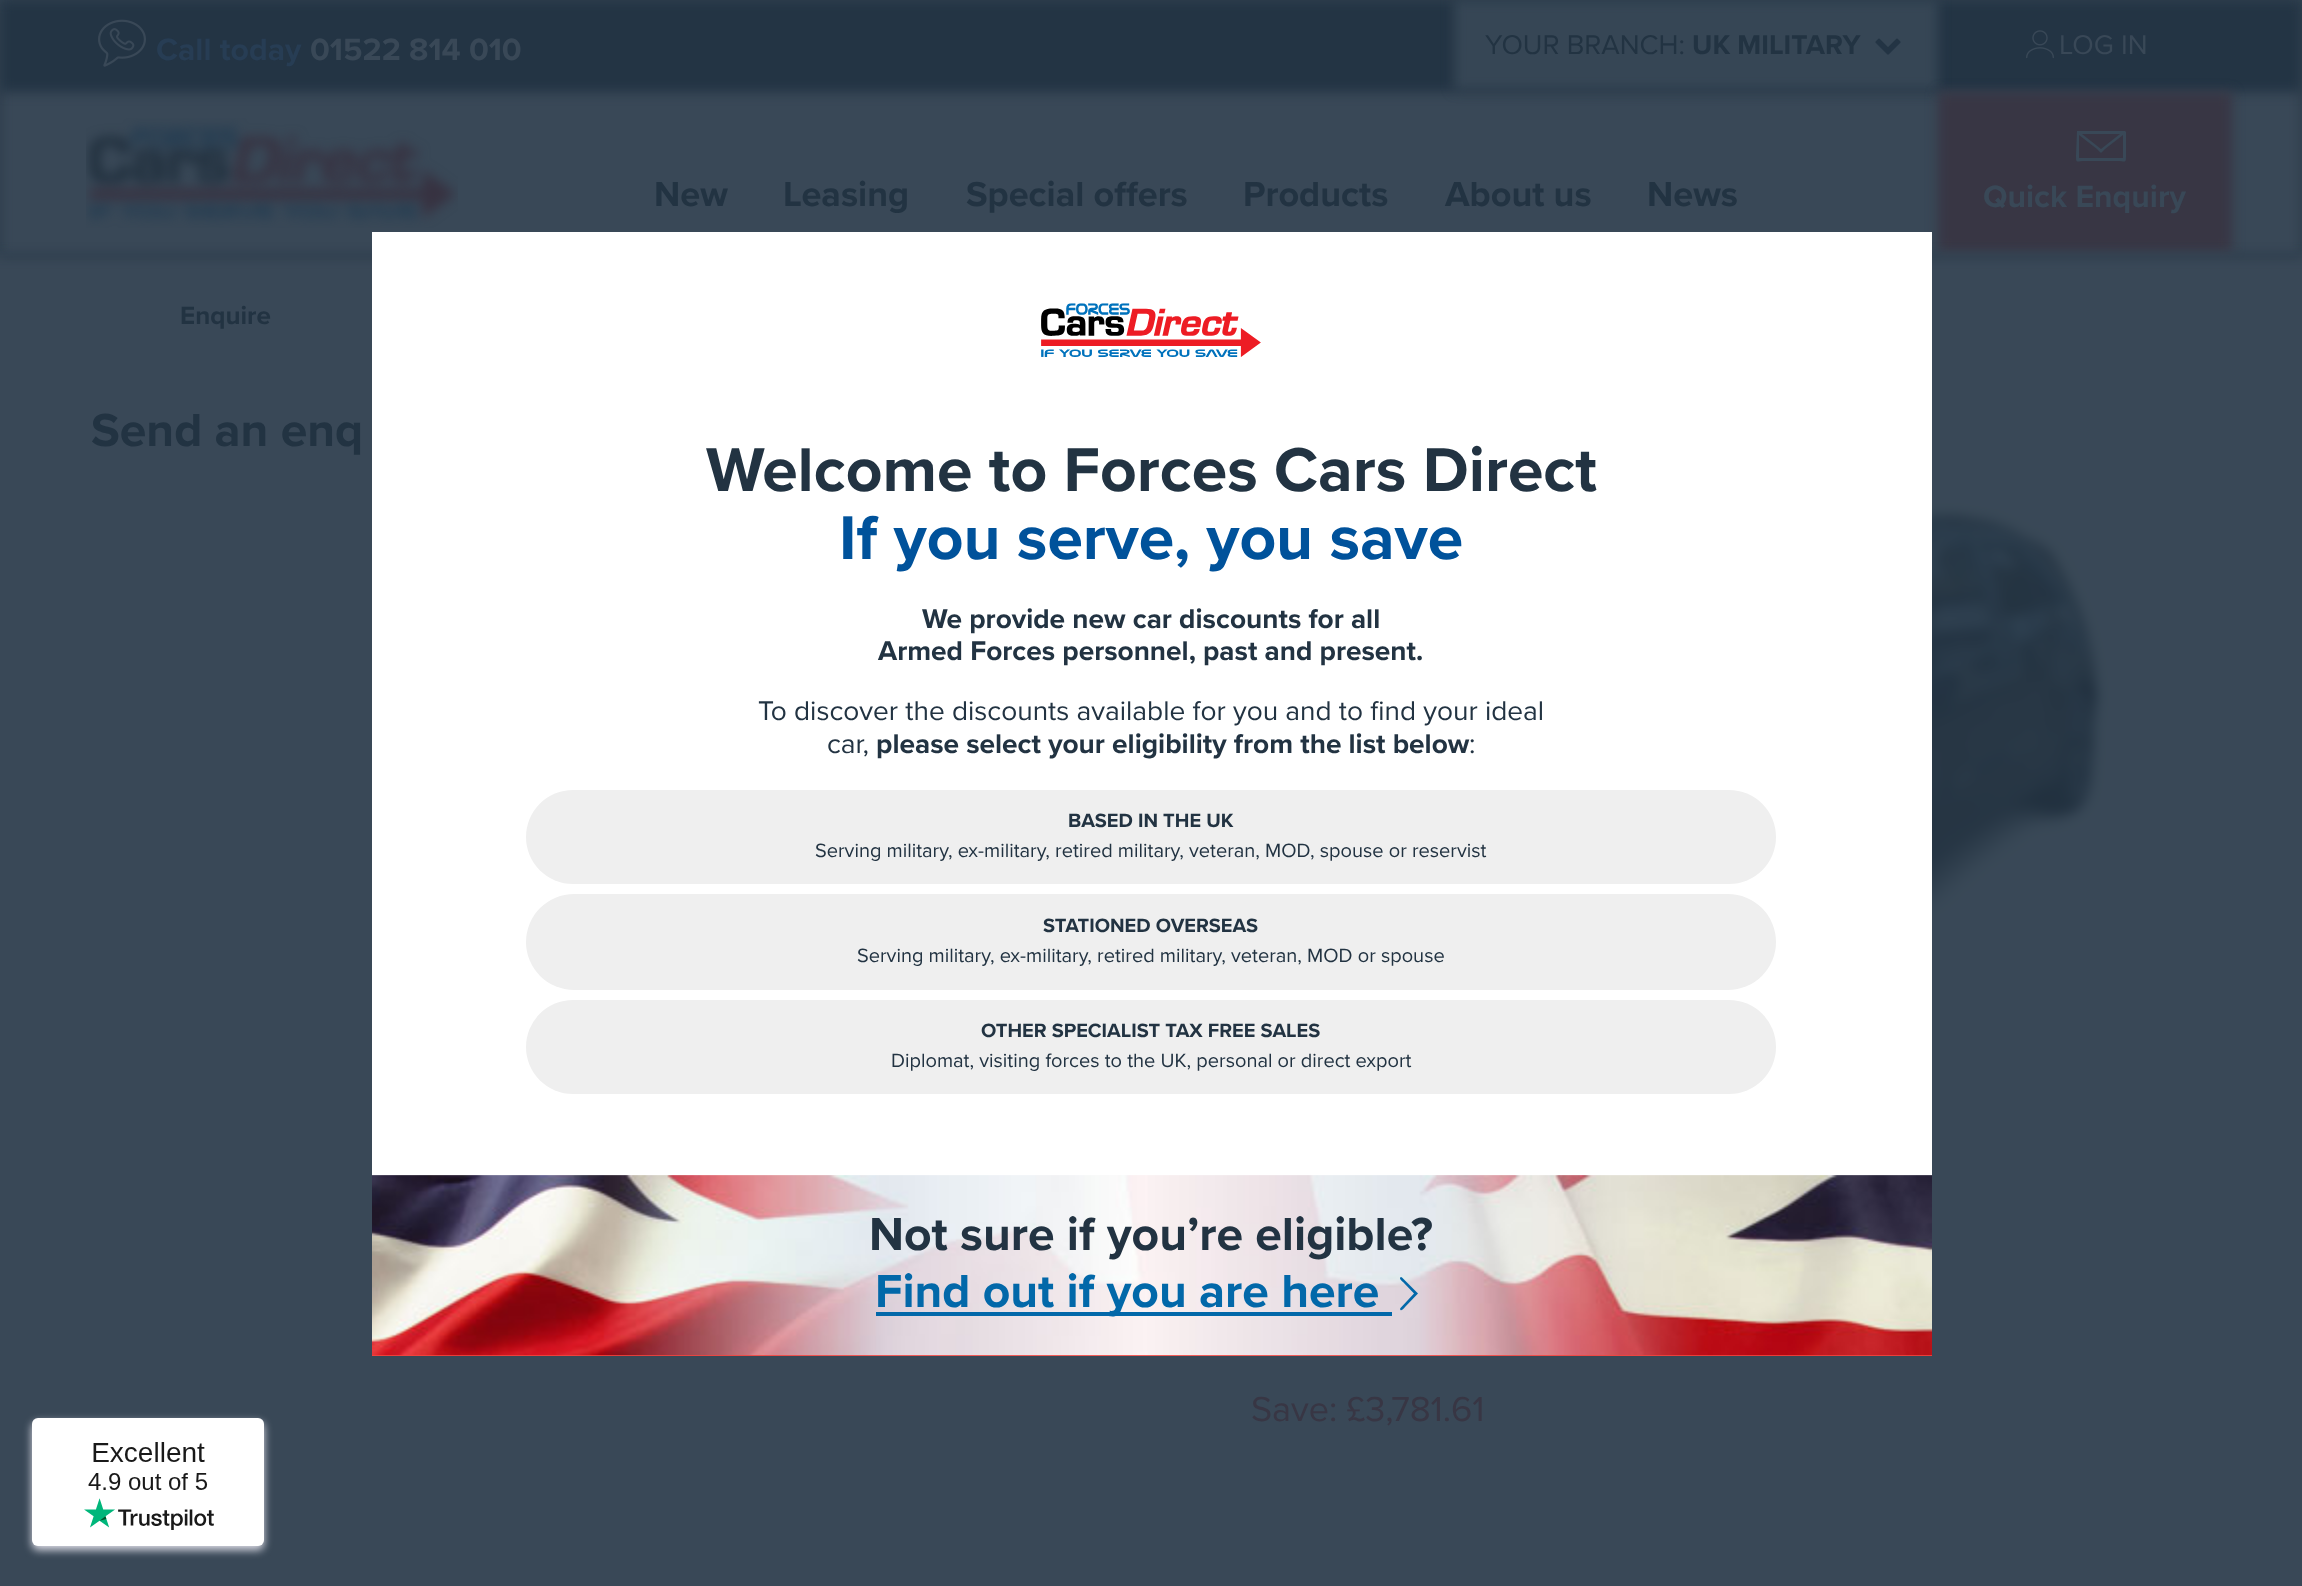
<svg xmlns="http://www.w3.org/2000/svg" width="2302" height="1586">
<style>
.a{font:bold 32px Proxima Nova;fill:#273d54}
.b{font:bold 32px Proxima Nova;fill:#394857}
.c{font:28px Proxima Nova;fill:#223342}
.d{font:bold 28px Proxima Nova;fill:#223342}
.e{font:28px Proxima Nova;fill:#394857}
.f{font:bold 36px Proxima Nova;fill:#223342}
.g{font:bold 26px Proxima Nova;fill:#223342}
.h{font:bold 48px Proxima Nova;fill:#223342}
.i{font:36px Proxima Nova;fill:#383644}
.j{font:bold 64px Proxima Nova;fill:#223342}
.k{font:bold 64px Proxima Nova;fill:#00529b}
.l{font:bold 20px Proxima Nova;fill:#223342}
.m{font:20px Proxima Nova;fill:#223342}
.n{font:bold 48px Proxima Nova;fill:#0268a9}
</style>
<rect width="100%" height="100%" fill="#394857"/>
<path fill="#233444" filter="blur(6px)" d="M0 0h2302v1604H0z"/>
<path fill="#394857" filter="blur(6px)" d="M0 0h2302v256H0z"/>
<path fill="#233444" filter="blur(6px)" d="M0 0h2302v92H0z"/>
<image href="1.png" x="98" y="19" width="48" height="48"/>
<path fill="#364655" filter="blur(6px)" d="M1454 0h484v90H1454z"/>
<image href="2.png" x="1875" y="38" width="26" height="17"/>
<image href="3.png" x="2026" y="30" width="28" height="29"/>
<image href="4.png" x="86" y="118" width="372" height="110"/>
<path fill="#383644" filter="blur(6px)" d="M1938 92h294v160H1938z"/>
<path fill="#394857" d="M2126 132l-1-1h-48l-1 24c0 9 0 6 9 6h32c9 0 9 3 9-6zm-6 2l-19 15l-19-15zm-41 24v-23l18 14c5 5 3 5 8 0l18-14v23zm-11-24h-26zm0 12h-17zm0 12h-8z"/>
<path fill="#394857" filter="blur(6px)" d="M-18 256h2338v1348H-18z"/>
<image href="5.png" x="1932" y="503" width="177" height="532"/>
<path fill="#fff" d="M372 232h1560v944H372z"/>
<image href="6.png" x="1041" y="303" width="220" height="54"/>
<rect fill="#efefef" x="526" y="790" width="1250" height="94" rx="47"/>
<rect fill="#efefef" x="526" y="894" width="1250" height="96" rx="48"/>
<rect fill="#efefef" x="526" y="1000" width="1250" height="94" rx="47"/>
<path fill="#f3453f" d="M372 1355h1560v1H372z"/>
<image href="7.png" x="372" y="1175" width="1560" height="181"/>
<path fill="#0268a9" d="M876 1312h516v4H876z"/>
<path fill="#0268a9" d="M1400.5 1308l13.5-14.5l-11-11.5c-.5-.5-5-4-2-5l1 .5l16 16l-.5 .5l-12.5 13c-.5 .5-4 5.5-5 2z"/>
<rect fill="#dcdce6" filter="blur(4px)" x="32" y="1422" width="232" height="128" rx="6"/>
<rect fill="#fff" x="32" y="1418" width="232" height="128" rx="6"/>
<image href="8.png" x="84" y="1442" width="130" height="88"/>
<text class="a" x="156" y="60">Call today</text>
<text class="b" x="310" y="60">01522 814 010</text>
<text class="c" x="1485" y="54">YOUR BRANCH:</text>
<text class="d" x="1692" y="54">UK MILITARY</text>
<text class="e" x="2059" y="54">LOG IN</text>
<text class="f" x="654" y="206">New</text>
<text class="f" x="783" y="206">Leasing</text>
<text class="f" x="966" y="206">Special offers</text>
<text class="f" x="1243" y="206">Products</text>
<text class="f" x="1445" y="206">About us</text>
<text class="f" x="1647" y="206">News</text>
<text class="b" x="1983" y="207">Quick Enquiry</text>
<text class="g" x="180" y="324">Enquire</text>
<text class="h" x="91" y="446">Send an enq</text>
<text class="i" x="1251" y="1421">Save: £3,781.61</text>
<text class="j" x="706" y="491">Welcome to Forces Cars Direct</text>
<text class="k" x="839" y="559">If you serve, you save</text>
<text class="d" x="922" y="628">We provide new car discounts for all</text>
<text class="d" x="878" y="660">Armed Forces personnel, past and present.</text>
<text class="c" x="758" y="720">To discover the discounts available for you and to find your ideal</text>
<text class="c" x="827" y="753">car,</text>
<text class="d" x="876" y="753">please select your eligibility from the list below</text>
<text class="c" x="1469" y="753">:</text>
<text class="l" x="1068" y="827">BASED IN THE UK</text>
<text class="m" x="815" y="857">Serving military, ex-military, retired military, veteran, MOD, spouse or reservist</text>
<text class="l" x="1043" y="932">STATIONED OVERSEAS</text>
<text class="m" x="857" y="962">Serving military, ex-military, retired military, veteran, MOD or spouse</text>
<text class="l" x="981" y="1037">OTHER SPECIALIST TAX FREE SALES</text>
<text class="m" x="891" y="1067">Diplomat, visiting forces to the UK, personal or direct export</text>
<text class="h" x="869" y="1250">Not sure if you’re eligible?</text>
<text class="n" x="875" y="1307">Find out if you are here</text>
</svg>
